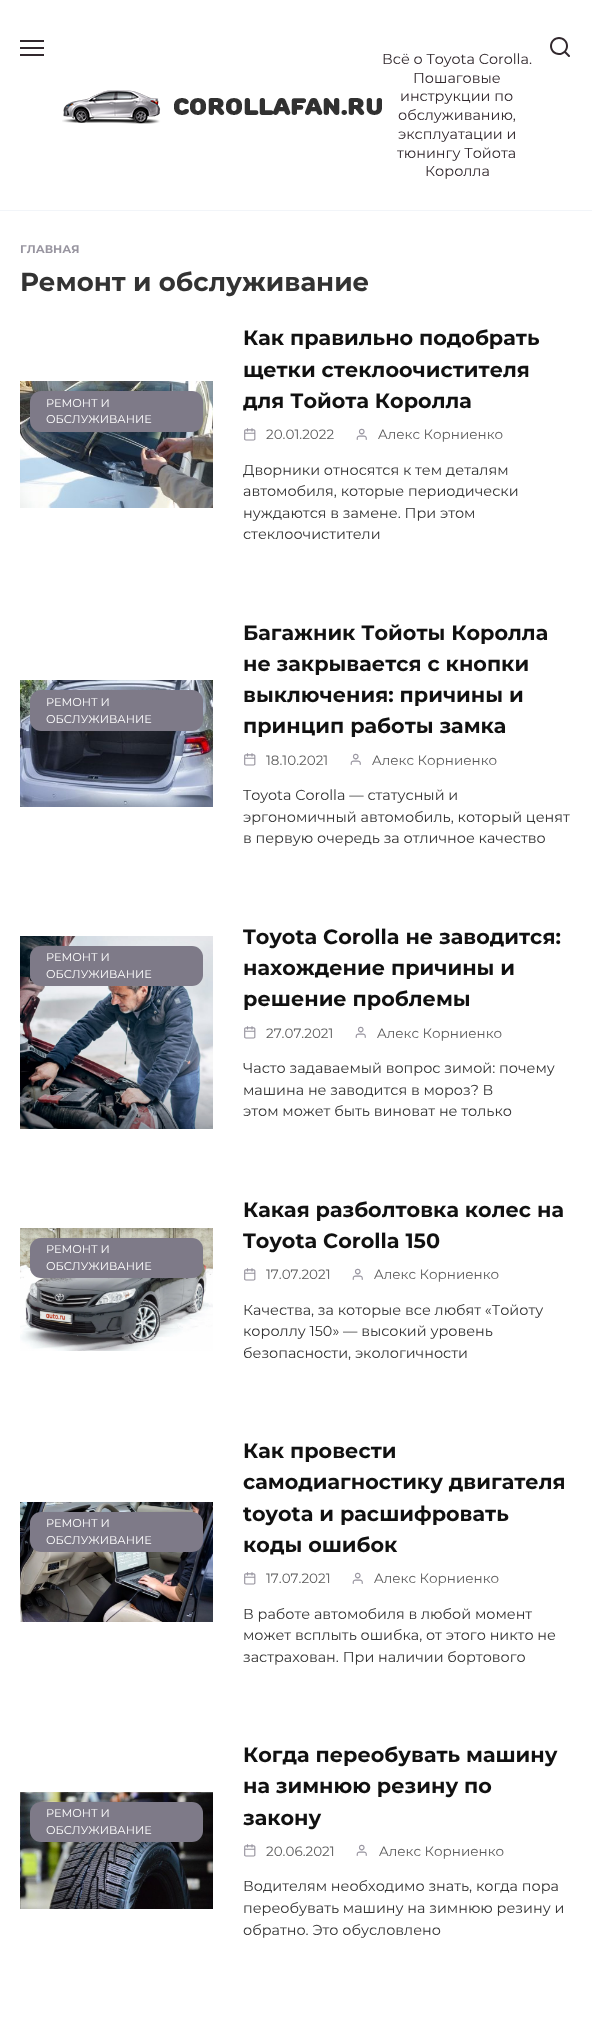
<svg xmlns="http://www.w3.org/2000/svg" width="592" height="2021">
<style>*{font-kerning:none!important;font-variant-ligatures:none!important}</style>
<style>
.a{font:24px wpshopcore;fill:#31282d}
.b{font:14.4px Montserrat;fill:#31282d}
.c{font:bold 11.25px Montserrat;fill:#9895a0}
.d{font:bold 26px Montserrat;fill:#333}
.e{font:11.25px Montserrat;fill:#fff}
.f{font:bold 20.75px Montserrat;fill:#111}
.g{font:13.5px wpshopcore;fill:#9895a0}
.h{font:13.5px Montserrat;fill:#5c5c5c}
.i{font:14.4px Montserrat;fill:#333}
</style>
<rect width="100%" height="100%" fill="#fff"/>
<path fill="#f2f5f9" d="M0 210h592v1H0z"/>
<path fill="#31282d" d="M20 40h24v2H20z"/>
<path fill="#31282d" d="M20 47h24v2H20z"/>
<path fill="#31282d" d="M20 54h24v2H20z"/>
<image href="1.png" x="62" y="90" width="320" height="34"/>
<image href="2.png" x="20" y="381" width="193" height="127"/>
<rect fill="#7e7a88" x="30" y="391" width="173" height="41" rx="11"/>
<image href="3.png" x="20" y="680" width="193" height="127"/>
<rect fill="#7e7a88" x="30" y="690" width="173" height="41" rx="11"/>
<image href="4.png" x="20" y="936" width="193" height="193"/>
<rect fill="#7e7a88" x="30" y="946" width="173" height="40" rx="11"/>
<image href="5.png" x="20" y="1228" width="193" height="123"/>
<rect fill="#7e7a88" x="30" y="1238" width="173" height="40" rx="11"/>
<image href="6.png" x="20" y="1502" width="193" height="120"/>
<rect fill="#7e7a88" x="30" y="1512" width="173" height="40" rx="11"/>
<image href="7.png" x="20" y="1792" width="193" height="117"/>
<rect fill="#7e7a88" x="30" y="1802" width="173" height="40" rx="11"/>
<text class="a" x="548" y="57">🔍</text>
<text class="b" x="382" y="64">Всё о Toyota Corolla.</text>
<text class="b" x="413" y="83">Пошаговые</text>
<text class="b" x="400" y="101">инструкции по</text>
<text class="b" x="398" y="120">обслуживанию,</text>
<text class="b" x="398" y="139">эксплуатации и</text>
<text class="b" x="397" y="158">тюнингу Тойота</text>
<text class="b" x="425" y="176">Королла</text>
<text class="c" x="20" y="253">ГЛАВНАЯ</text>
<text class="d" x="20" y="291">Ремонт и обслуживание</text>
<text class="e" x="46" y="407">РЕМОНТ И</text>
<text class="e" x="46" y="423">ОБСЛУЖИВАНИЕ</text>
<text class="f" x="243" y="345">Как правильно подобрать</text>
<text class="f" x="243" y="377">щетки стеклоочистителя</text>
<text class="f" x="243" y="408">для Тойота Королла</text>
<text class="g" x="243" y="440">📅</text>
<text class="h" x="266" y="439">20.01.2022</text>
<text class="g" x="355" y="440">👤</text>
<text class="h" x="378" y="439">Aлекс Корниенко</text>
<text class="i" x="243" y="475">Дворники относятся к тем деталям</text>
<text class="i" x="243" y="496">автомобиля, которые периодически</text>
<text class="i" x="243" y="518">нуждаются в замене. При этом</text>
<text class="i" x="243" y="539">стеклоочистители</text>
<text class="e" x="46" y="706">РЕМОНТ И</text>
<text class="e" x="46" y="723">ОБСЛУЖИВАНИЕ</text>
<text class="f" x="243" y="640">Багажник Тойоты Королла</text>
<text class="f" x="243" y="671">не закрывается с кнопки</text>
<text class="f" x="243" y="702">выключения: причины и</text>
<text class="f" x="243" y="733">принцип работы замка</text>
<text class="g" x="243" y="765">📅</text>
<text class="h" x="266" y="765">18.10.2021</text>
<text class="g" x="349" y="765">👤</text>
<text class="h" x="372" y="765">Aлекс Корниенко</text>
<text class="i" x="243" y="800">Toyota Corolla — статусный и</text>
<text class="i" x="243" y="822">эргономичный автомобиль, который ценят</text>
<text class="i" x="243" y="843">в первую очередь за отличное качество</text>
<text class="e" x="46" y="961">РЕМОНТ И</text>
<text class="e" x="46" y="978">ОБСЛУЖИВАНИЕ</text>
<text class="f" x="243" y="944">Toyota Corolla не заводится:</text>
<text class="f" x="243" y="975">нахождение причины и</text>
<text class="f" x="243" y="1006">решение проблемы</text>
<text class="g" x="243" y="1038">📅</text>
<text class="h" x="266" y="1038">27.07.2021</text>
<text class="g" x="354" y="1038">👤</text>
<text class="h" x="377" y="1038">Aлекс Корниенко</text>
<text class="i" x="243" y="1073">Часто задаваемый вопрос зимой: почему</text>
<text class="i" x="243" y="1095">машина не заводится в мороз? В</text>
<text class="i" x="243" y="1116">этом может быть виноват не только</text>
<text class="e" x="46" y="1253">РЕМОНТ И</text>
<text class="e" x="46" y="1270">ОБСЛУЖИВАНИЕ</text>
<text class="f" x="243" y="1217">Какая разболтовка колес на</text>
<text class="f" x="243" y="1248">Toyota Corolla 150</text>
<text class="g" x="243" y="1280">📅</text>
<text class="h" x="266" y="1279">17.07.2021</text>
<text class="g" x="351" y="1280">👤</text>
<text class="h" x="374" y="1279">Aлекс Корниенко</text>
<text class="i" x="243" y="1315">Качества, за которые все любят «Тойоту</text>
<text class="i" x="243" y="1336">короллу 150» — высокий уровень</text>
<text class="i" x="243" y="1358">безопасности, экологичности</text>
<text class="e" x="46" y="1527">РЕМОНТ И</text>
<text class="e" x="46" y="1544">ОБСЛУЖИВАНИЕ</text>
<text class="f" x="243" y="1458">Как провести</text>
<text class="f" x="243" y="1489">самодиагностику двигателя</text>
<text class="f" x="243" y="1521">toyota и расшифровать</text>
<text class="f" x="243" y="1552">коды ошибок</text>
<text class="g" x="243" y="1584">📅</text>
<text class="h" x="266" y="1583">17.07.2021</text>
<text class="g" x="351" y="1584">👤</text>
<text class="h" x="374" y="1583">Aлекс Корниенко</text>
<text class="i" x="243" y="1619">В работе автомобиля в любой момент</text>
<text class="i" x="243" y="1640">может всплыть ошибка, от этого никто не</text>
<text class="i" x="243" y="1662">застрахован. При наличии бортового</text>
<text class="e" x="46" y="1817">РЕМОНТ И</text>
<text class="e" x="46" y="1834">ОБСЛУЖИВАНИЕ</text>
<text class="f" x="243" y="1762">Когда переобувать машину</text>
<text class="f" x="243" y="1793">на зимнюю резину по</text>
<text class="f" x="243" y="1825">закону</text>
<text class="g" x="243" y="1856">📅</text>
<text class="h" x="266" y="1856">20.06.2021</text>
<text class="g" x="355" y="1856">👤</text>
<text class="h" x="379" y="1856">Aлекс Корниенко</text>
<text class="i" x="243" y="1891">Водителям необходимо знать, когда пора</text>
<text class="i" x="243" y="1913">переобувать машину на зимнюю резину и</text>
<text class="i" x="243" y="1935">обратно. Это обусловлено</text>
</svg>
